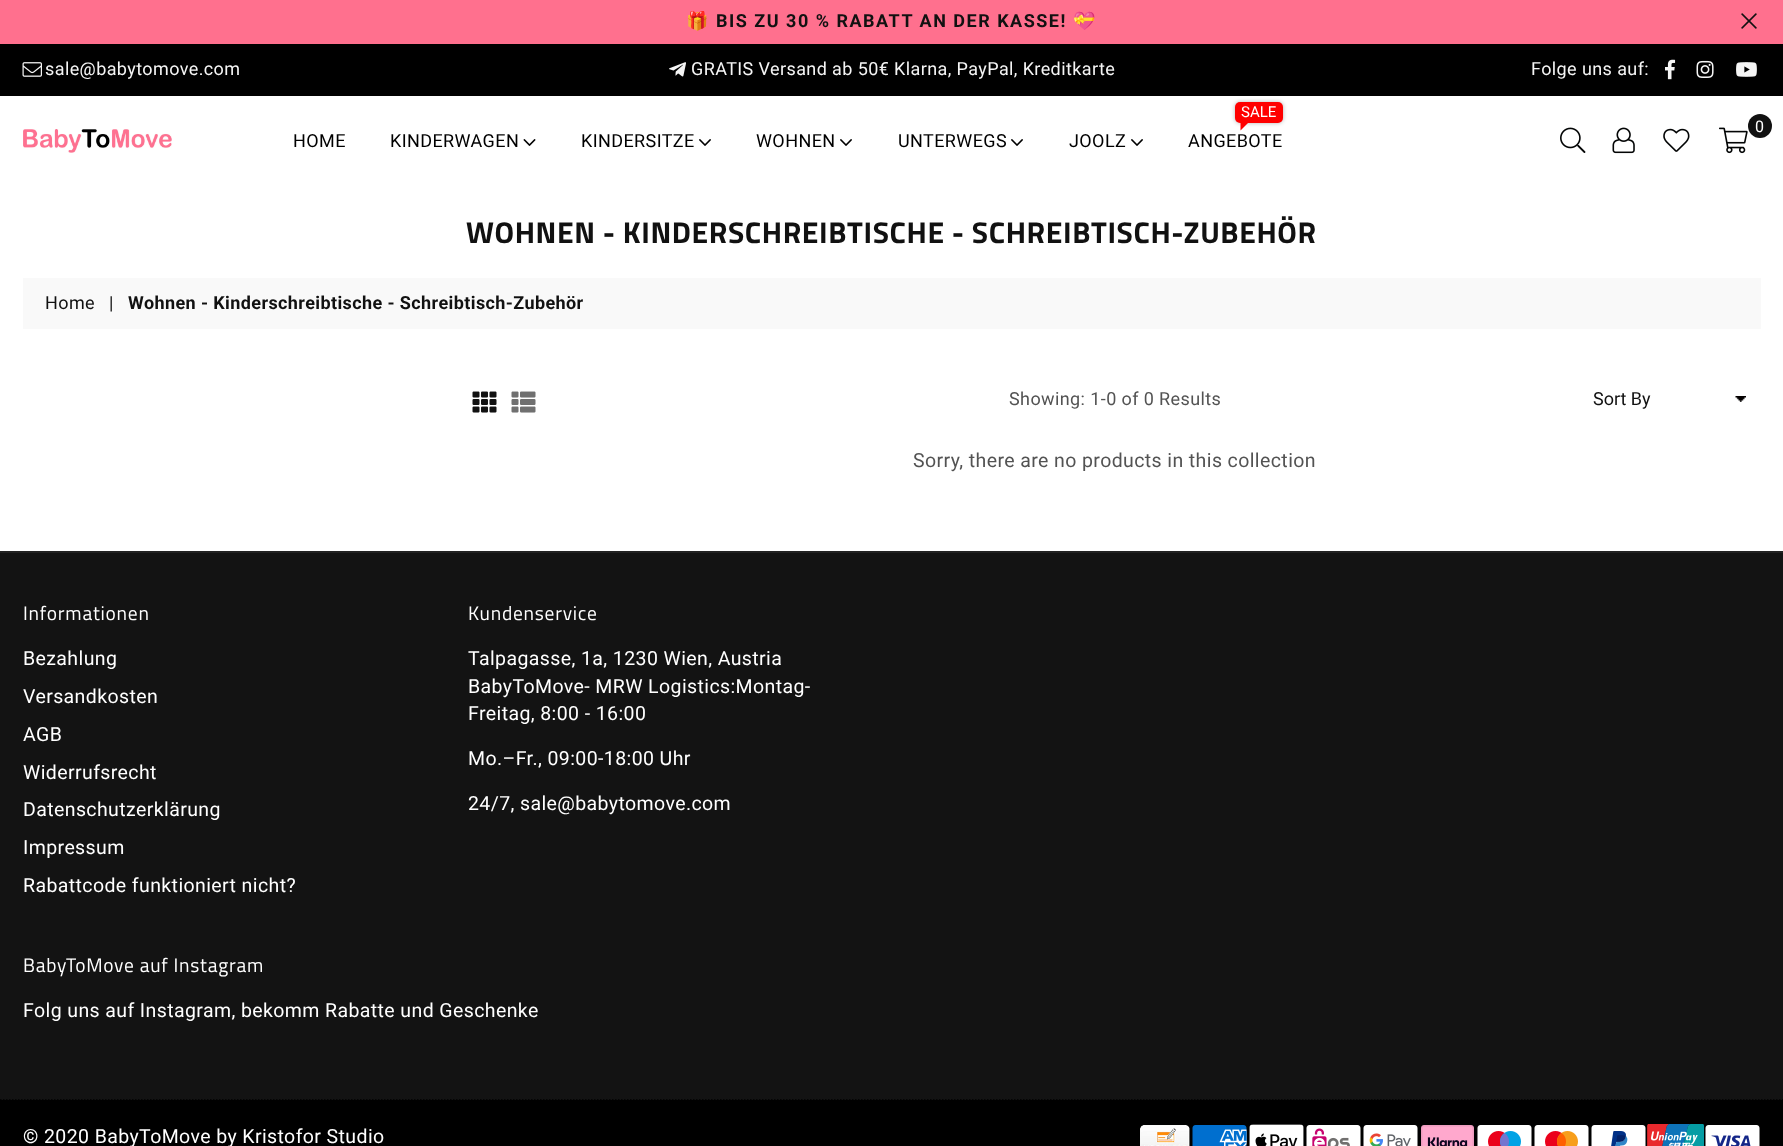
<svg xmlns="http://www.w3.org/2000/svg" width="1783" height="1146">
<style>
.a{font:bold 18px Noto Color Emoji;letter-spacing:1.5px;fill:#111}
.b{font:bold 18px Roboto;letter-spacing:1.5px;fill:#111}
.c{font:18px Roboto;letter-spacing:0.4px;fill:#f5f5f5}
.d{font:18px Roboto;letter-spacing:0.4px;fill:#000}
.e{font:15px Roboto;fill:#fff}
.f{font:16px Roboto;letter-spacing:0.4px;fill:#fff}
.g{font:bold 30px Titillium Web;letter-spacing:0.6px;fill:#111}
.h{font:18px Roboto;letter-spacing:0.4px;fill:#111}
.i{font:bold 18px Roboto;letter-spacing:0.4px;fill:#111}
.j{font:18px Roboto;letter-spacing:0.4px;fill:#535353}
.k{font:18px Roboto;fill:#111}
.l{font:19.5px Roboto;letter-spacing:0.4px;fill:#535353}
.m{font:19.5px Titillium Web;letter-spacing:0.75px;fill:#fff}
.n{font:19.5px Roboto;letter-spacing:0.4px;fill:#fff}
</style>
<rect width="100%" height="100%" fill="#fff"/>
<path fill="#ff708e" d="M0 0h1783v44H0z"/>
<image href="1.png" x="1741" y="13" width="16" height="16"/>
<path fill="#000" d="M0 44h1783v52H0z"/>
<image href="2.png" x="22" y="62" width="20" height="15"/>
<image href="3.png" x="669" y="62" width="17" height="15"/>
<image href="4.png" x="1665" y="59" width="11" height="21"/>
<image href="5.png" x="1696" y="60" width="18" height="18"/>
<image href="6.png" x="1736" y="62" width="21" height="15"/>
<image href="7.png" x="523" y="139" width="13" height="7"/>
<image href="8.png" x="699" y="139" width="12" height="7"/>
<image href="8.png" x="840" y="139" width="12" height="7"/>
<image href="8.png" x="1011" y="139" width="12" height="7"/>
<image href="8.png" x="1131" y="139" width="12" height="7"/>
<rect fill="#0000004d" filter="blur(2px)" x="1235" y="102" width="48" height="21" rx="5"/>
<rect fill="#f00" x="1235" y="102" width="48" height="21" rx="5"/>
<image href="9.png" x="1560" y="127" width="26" height="26"/>
<image href="10.png" x="1612" y="127" width="23" height="27"/>
<image href="11.png" x="1663" y="128" width="27" height="24"/>
<image href="12.png" x="1719" y="127" width="29" height="27"/>
<circle fill="#111" cx="1760" cy="126" r="12"/>
<image href="13.png" x="23" y="129" width="149" height="24"/>
<path fill="#f9f9f9" d="M23 278h1738v51H23z"/>
<image href="14.png" x="472" y="391" width="25" height="22"/>
<image href="15.png" x="511" y="391" width="25" height="22"/>
<image href="16.png" x="1735" y="396" width="11" height="6"/>
<path fill="#131313" d="M0 553h1783v547H0z"/>
<path fill="#222" d="M0 551h1783v2H0z"/>
<path fill="#000" d="M0 1100h1783v46H0z"/>
<path fill="none" stroke="#000" stroke-width="1.5" stroke-dasharray="1.5 1.5" d="M0 1100h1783.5"/>
<image href="17.png" x="1140" y="1125" width="50" height="21"/>
<image href="18.png" x="1192" y="1125" width="55" height="21"/>
<image href="19.png" x="1249" y="1124" width="55" height="22"/>
<image href="20.png" x="1306" y="1125" width="55" height="21"/>
<image href="21.png" x="1363" y="1125" width="55" height="21"/>
<image href="22.png" x="1421" y="1125" width="53" height="21"/>
<image href="23.png" x="1477" y="1125" width="55" height="21"/>
<image href="24.png" x="1534" y="1125" width="55" height="21"/>
<image href="25.png" x="1591" y="1125" width="55" height="21"/>
<image href="26.png" x="1647" y="1124" width="57" height="22"/>
<image href="27.png" x="1705" y="1125" width="55" height="21"/>
<text class="a" x="686" y="27">🎁</text>
<text class="b" x="716" y="27">BIS ZU 30 % RABATT AN DER KASSE!</text>
<text class="a" x="1073" y="27">💝</text>
<text class="c" x="45" y="75">sale@babytomove.com</text>
<text class="c" x="691" y="75">GRATIS Versand ab 50€ Klarna, PayPal, Kreditkarte</text>
<text class="c" x="1531" y="75">Folge uns auf:</text>
<text class="d" x="293" y="147">HOME</text>
<text class="d" x="390" y="147">KINDERWAGEN</text>
<text class="d" x="581" y="147">KINDERSITZE</text>
<text class="d" x="756" y="147">WOHNEN</text>
<text class="d" x="898" y="147">UNTERWEGS</text>
<text class="d" x="1069" y="147">JOOLZ</text>
<text class="e" x="1241" y="117">SALE</text>
<path fill="#f00" d="M1240.5 130.5v-15l7.5 7.5z"/>
<text class="d" x="1188" y="147">ANGEBOTE</text>
<text class="f" x="1755" y="132">0</text>
<text class="g" x="466" y="243">WOHNEN - KINDERSCHREIBTISCHE - SCHREIBTISCH-ZUBEHÖR</text>
<text class="h" x="45" y="309">Home</text>
<text class="h" x="109" y="309">|</text>
<text class="i" x="128" y="309">Wohnen - Kinderschreibtische - Schreibtisch-Zubehör</text>
<text class="j" x="1009" y="405">Showing: 1-0 of 0 Results</text>
<text class="k" x="1593" y="405">Sort By</text>
<text class="l" x="913" y="467">Sorry, there are no products in this collection</text>
<text class="m" x="23" y="620">Informationen</text>
<text class="n" x="23" y="665">Bezahlung</text>
<text class="n" x="23" y="703">Versandkosten</text>
<text class="n" x="23" y="741">AGB</text>
<text class="n" x="23" y="779">Widerrufsrecht</text>
<text class="n" x="23" y="816">Datenschutzerklärung</text>
<text class="n" x="23" y="854">Impressum</text>
<text class="n" x="23" y="892">Rabattcode funktioniert nicht?</text>
<text class="m" x="468" y="620">Kundenservice</text>
<text class="n" x="468" y="665">Talpagasse, 1a, 1230 Wien, Austria</text>
<text class="n" x="468" y="693">BabyToMove- MRW Logistics:Montag-</text>
<text class="n" x="468" y="720">Freitag, 8:00 - 16:00</text>
<text class="n" x="468" y="765">Mo.–Fr., 09:00-18:00 Uhr</text>
<text class="n" x="468" y="810">24/7, sale@babytomove.com</text>
<text class="m" x="23" y="972">BabyToMove auf Instagram</text>
<text class="n" x="23" y="1017">Folg uns auf Instagram, bekomm Rabatte und Geschenke</text>
<text class="n" x="23" y="1143">© 2020 BabyToMove by Kristofor Studio</text>
</svg>
